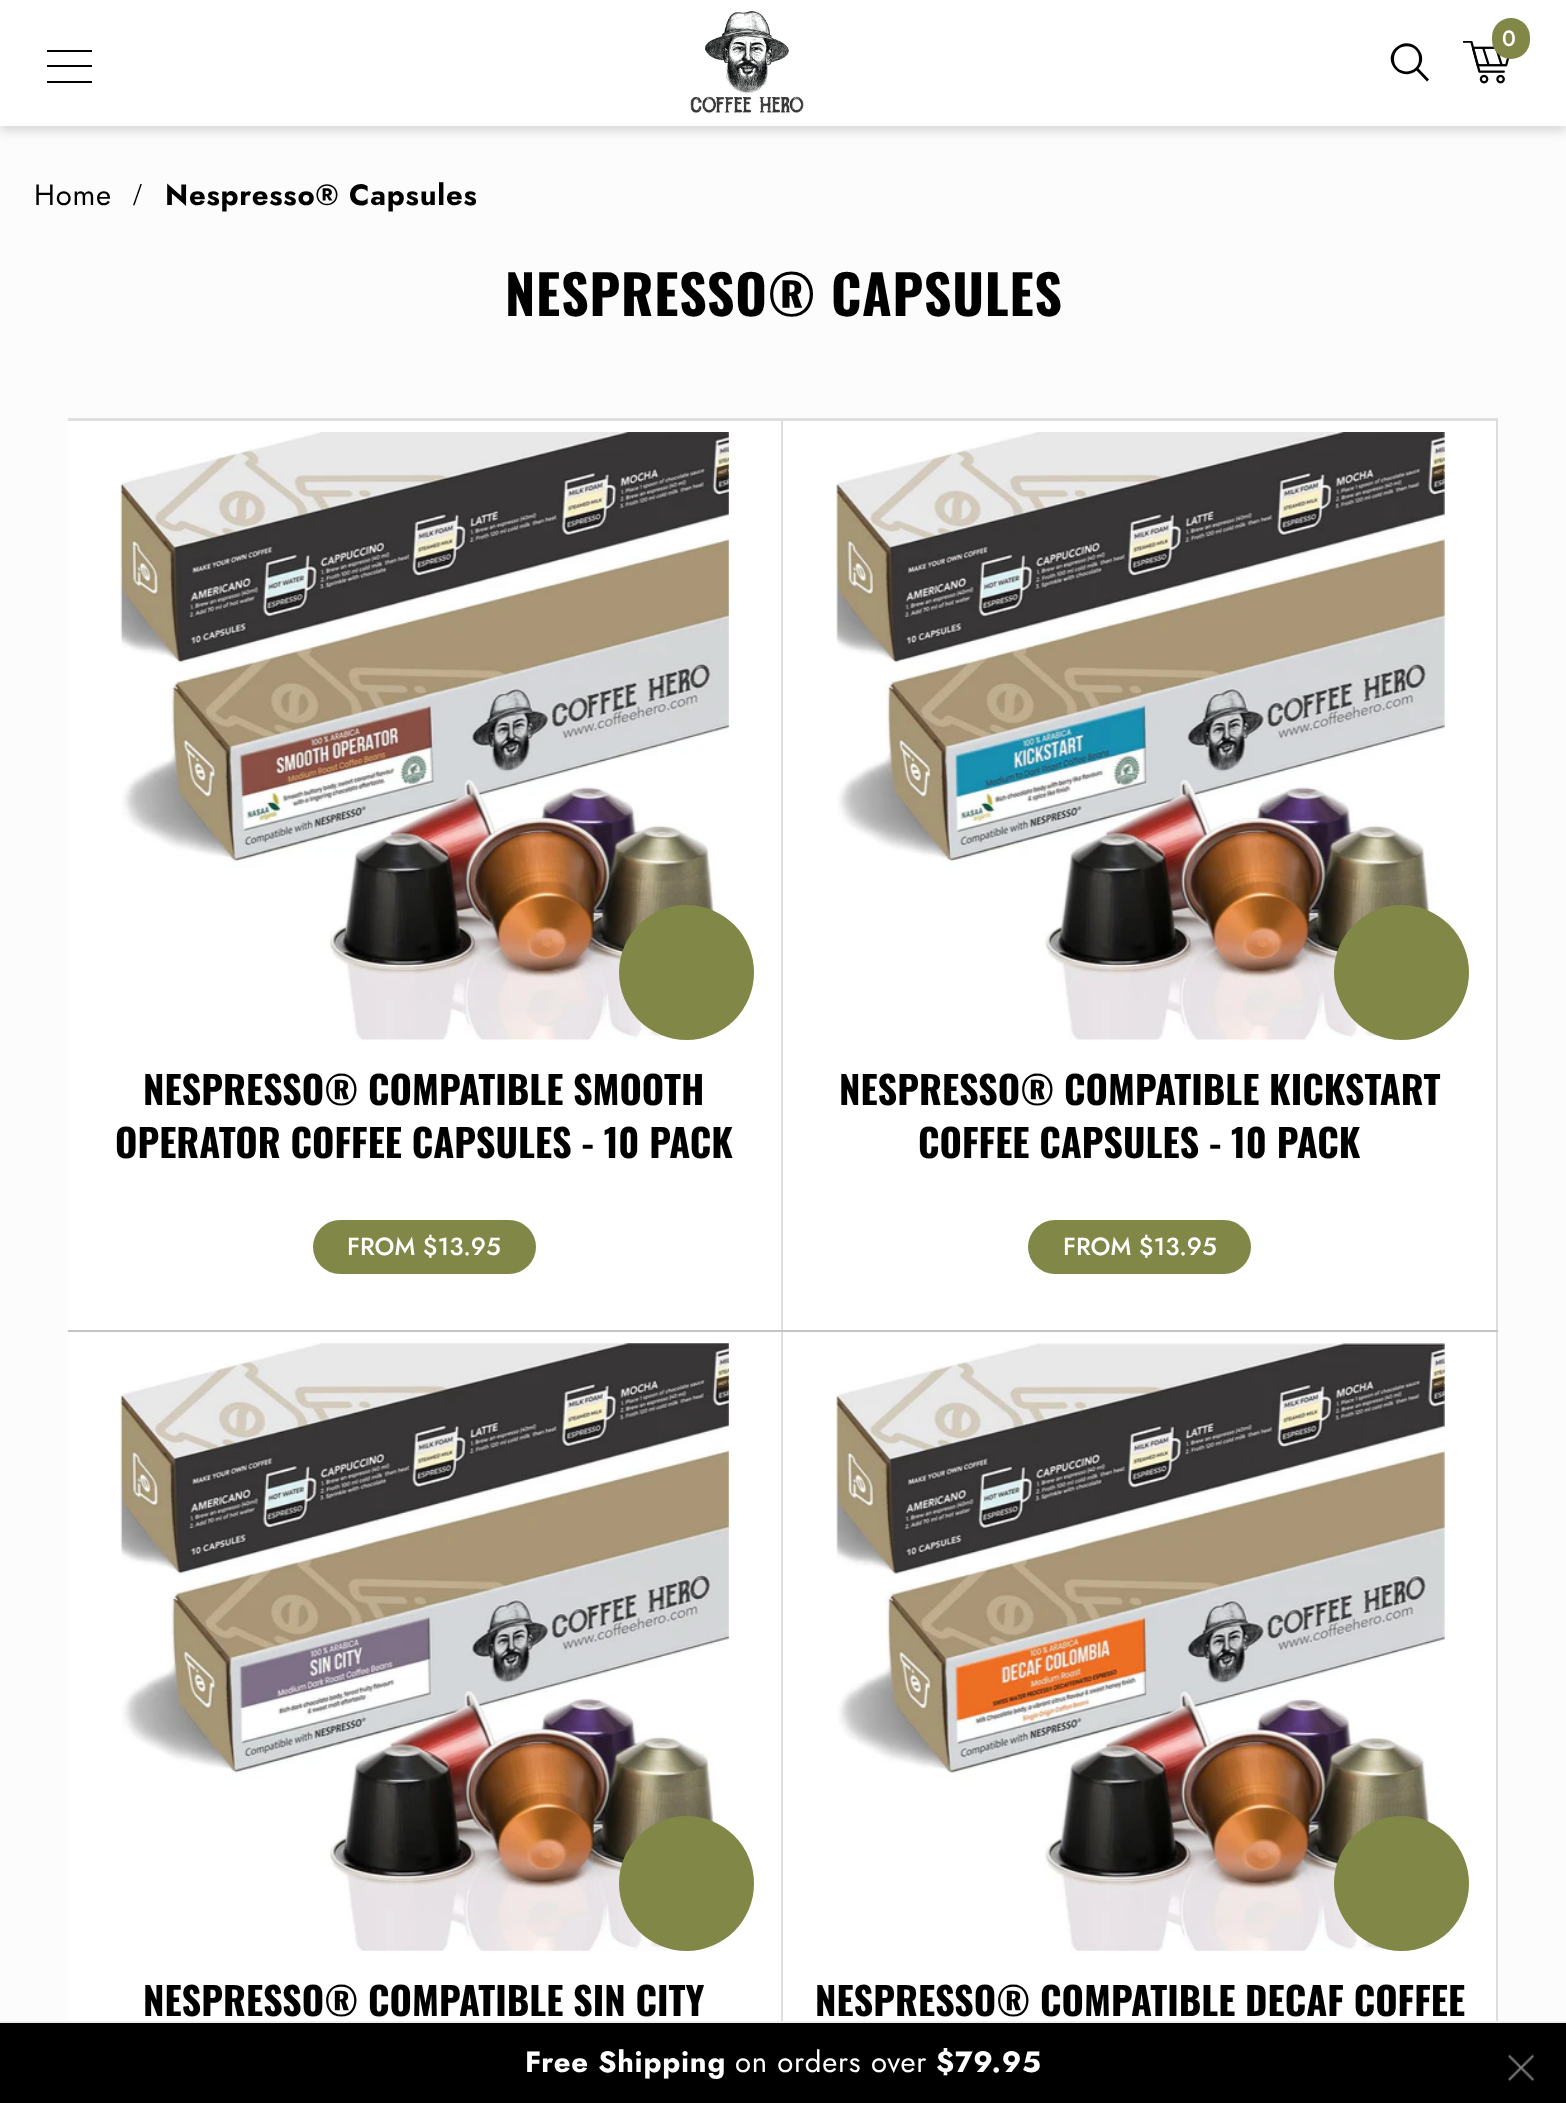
<svg xmlns="http://www.w3.org/2000/svg" width="1566" height="2103">
<style>
.a{font:500 22px Jost;letter-spacing:0.75px;fill:#fff}
.b{font:29.25px Jost;letter-spacing:0.75px;fill:#000}
.c{font:32px Liberation Serif;letter-spacing:0.75px;fill:#000}
.d{font:bold 29.25px Jost;letter-spacing:0.75px;fill:#000}
.e{font:bold 54px Oswald;letter-spacing:0.75px;fill:#000}
.f{font:bold 38.25px Oswald;fill:#000}
.g{font:500 24.75px Jost;fill:#fff}
.h{font:bold 29.25px Jost;letter-spacing:0.75px;fill:#fff}
.i{font:29.25px Jost;letter-spacing:0.75px;fill:#fff}
</style>
<rect width="100%" height="100%" fill="#fcfcfc"/>
<path fill="#00000026" filter="blur(5.5px)" d="M0 5h1566v126H0z"/>
<path fill="#fff" d="M0 0h1566v126H0z"/>
<image href="1.png" x="690" y="11" width="114" height="102"/>
<image href="2.png" x="1463" y="41" width="47" height="43"/>
<rect fill="#818747" x="1492" y="18" width="38" height="41" rx="19"/>
<path fill="#000" d="M1429 79.5l-10.5-11c12.5-15-9-34.5-23-20.5c-14 13.5 6 35 21 22.5l10.5 11zm-35-20.5c0-17 25.5-17 25 0c0 16.5-25 16.5-25 0z"/>
<path fill="#000" d="M47 65h45v2H47z"/>
<path fill="#000" d="M47 50h45v2H47z"/>
<path fill="#000" d="M47 81h45v2H47z"/>
<path fill="#dedede" d="M68 418h715l-2 3h-713z"/>
<path fill="#0100001f" d="M783 418v914h-2v-911z"/>
<path fill="#fff" d="M68 421h713v909H68z"/>
<path fill="#e1e0e0" d="M68 1330h713v2H68z"/>
<image href="3.png" x="120" y="432" width="609" height="608"/>
<circle fill="#818747" cx="686.5" cy="972.5" r="67.5"/>
<rect fill="#818747" x="313" y="1220" width="223" height="54" rx="27"/>
<path fill="#dedede" d="M783 418h715l-2 3h-713z"/>
<path fill="#0100001f" d="M1498 418v914h-2v-911z"/>
<path fill="#fff" d="M783 421h713v909H783z"/>
<path fill="#e1e0e0" d="M783 1330h713v2H783z"/>
<image href="4.png" x="836" y="432" width="609" height="608"/>
<circle fill="#818747" cx="1401.5" cy="972.5" r="67.5"/>
<rect fill="#818747" x="1028" y="1220" width="223" height="54" rx="27"/>
<path fill="#0100001f" d="M68 1330h715l-2 2h-713z"/>
<path fill="#0100001f" d="M783 1330v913h-2v-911z"/>
<path fill="#fff" d="M68 1332h713v689H68z"/>
<image href="5.png" x="120" y="1343" width="609" height="608"/>
<circle fill="#818747" cx="686.5" cy="1883.5" r="67.5"/>
<path fill="#0100001f" d="M783 1330h715l-2 2h-713z"/>
<path fill="#0100001f" d="M1498 1330v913h-2v-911z"/>
<path fill="#fff" d="M783 1332h713v689H783z"/>
<image href="6.png" x="836" y="1343" width="609" height="608"/>
<circle fill="#818747" cx="1401.5" cy="1883.5" r="67.5"/>
<path fill="#000" d="M0 2023h1566v80H0z"/>
<path fill="#eee" d="M0 2021h1566v2H0z"/>
<image href="7.png" x="1508" y="2054" width="26" height="27"/>
<text class="a" x="1502" y="46">0</text>
<text class="b" x="34" y="205">Home</text>
<text class="c" x="133" y="205">/</text>
<text class="d" x="165" y="205">Nespresso® Capsules</text>
<text class="e" x="505" y="316">NESPRESSO® CAPSULES</text>
<text class="f" x="143" y="1105">NESPRESSO® COMPATIBLE SMOOTH</text>
<text class="f" x="115" y="1158">OPERATOR COFFEE CAPSULES - 10 PACK</text>
<text class="g" x="347" y="1255">FROM $13.95</text>
<text class="f" x="839" y="1105">NESPRESSO® COMPATIBLE KICKSTART</text>
<text class="f" x="918" y="1158">COFFEE CAPSULES - 10 PACK</text>
<text class="g" x="1063" y="1255">FROM $13.95</text>
<text class="f" x="143" y="2016">NESPRESSO® COMPATIBLE SIN CITY</text>
<text class="f" x="815" y="2016">NESPRESSO® COMPATIBLE DECAF COFFEE</text>
<text class="h" x="525" y="2072">Free Shipping</text>
<text class="i" x="735" y="2072">on orders over</text>
<text class="h" x="936" y="2072">$79.95</text>
</svg>
